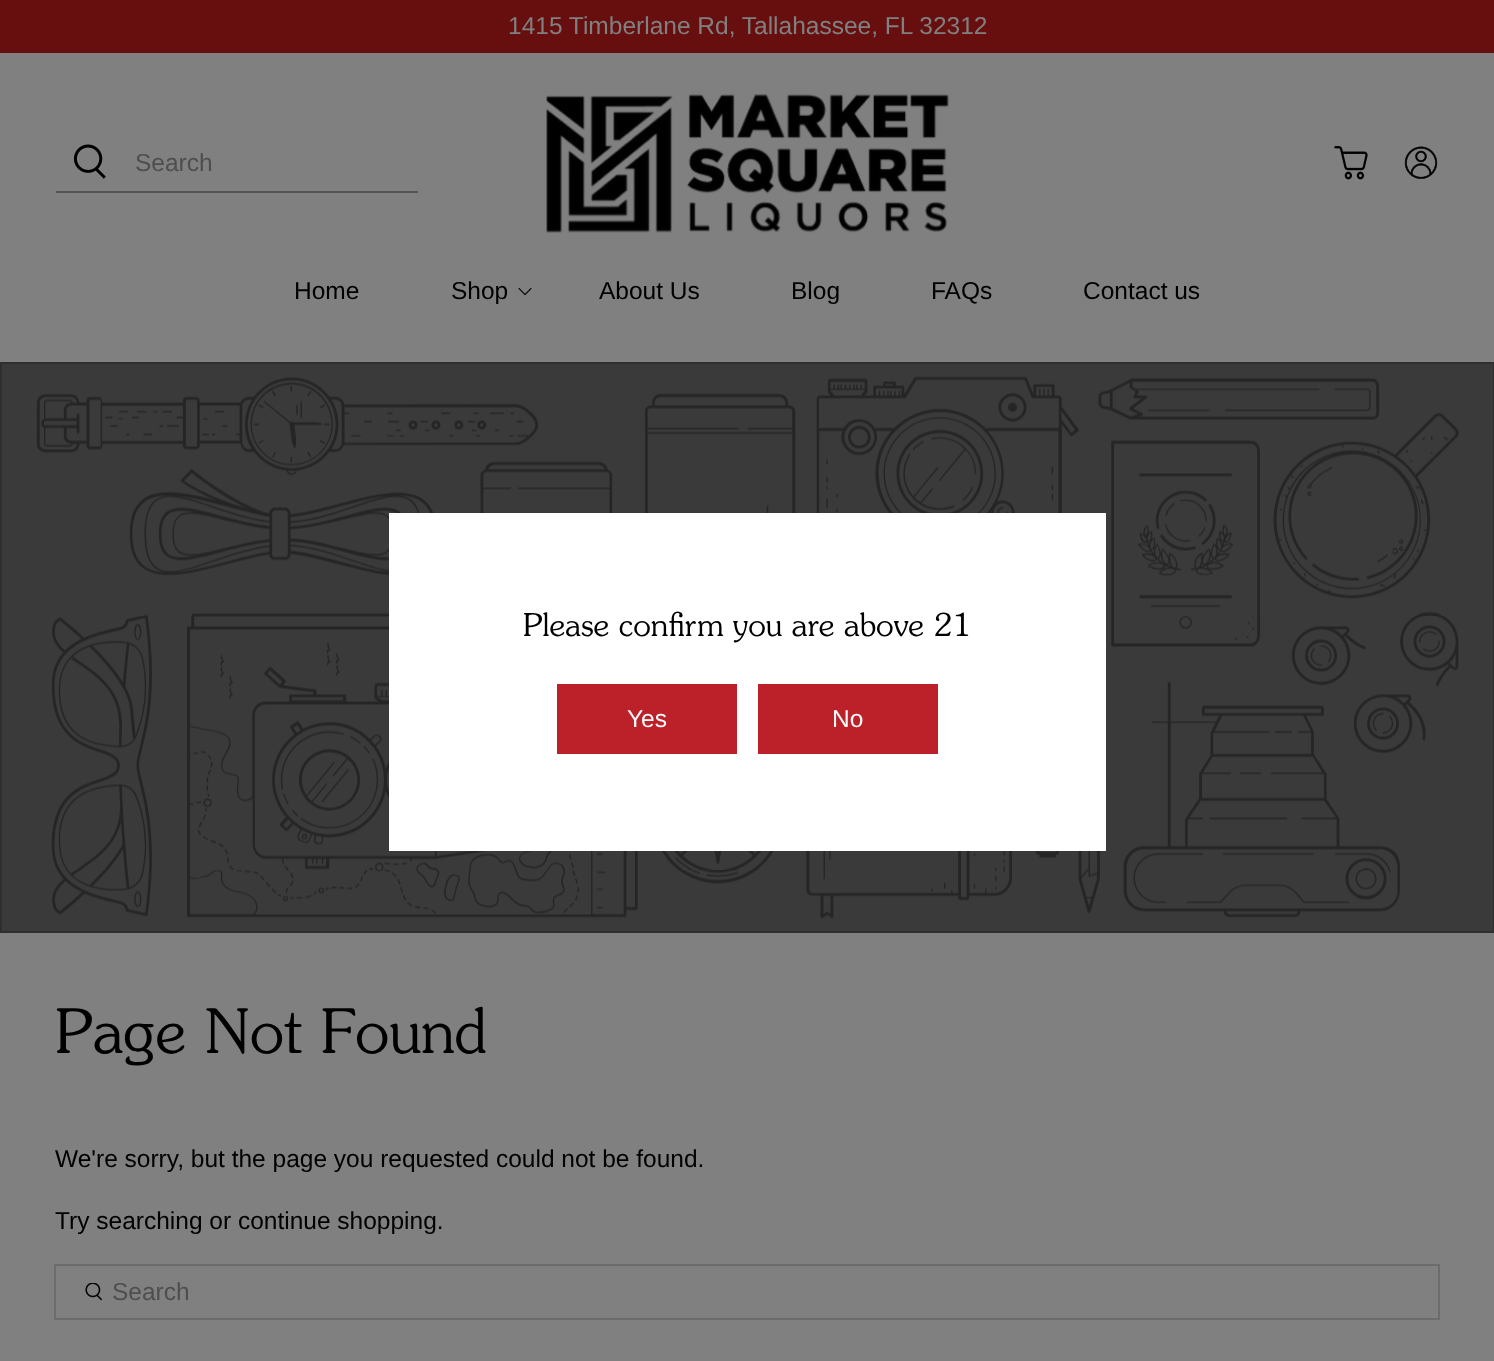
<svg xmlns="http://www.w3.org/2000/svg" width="1494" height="1361">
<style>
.a{font:24.5px Liberation Sans;fill:#808080}
.b{font:24.5px Liberation Sans;fill:#4e4e4e}
.c{font:24.5px Liberation Sans;fill:#000}
.d{font:300 31.5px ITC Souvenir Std;fill:#000}
.e{font:24.5px Liberation Sans;fill:#fafafa}
.f{font:300 61.25px ITC Souvenir Std;fill:#000}
</style>
<rect width="100%" height="100%" fill="#808080"/>
<path fill="#670f0f" d="M0 0h1494v53H0z"/>
<path fill="#535353" d="M56 191h362v2H56z"/>
<image href="1.png" x="73" y="144" width="33" height="35"/>
<image href="2.png" x="546" y="94" width="403" height="139"/>
<image href="3.png" x="1334" y="146" width="34" height="34"/>
<image href="4.png" x="1404" y="146" width="34" height="33"/>
<image href="5.png" x="518" y="287" width="14" height="9"/>
<path fill="#3a3a3a" stroke="#2e2e2e" stroke-width="2" d="M1 363h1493v569H1z"/>
<image href="6.png" x="36" y="376" width="1423" height="543"/>
<path fill="#fff" d="M389 513h717v338H389z"/>
<path fill="#bc2129" d="M557 684h180v70H557z"/>
<path fill="#bc2129" d="M758 684h180v70H758z"/>
<path fill="none" stroke="#6c6c6c" stroke-width="2" d="M55 1265h1384v54H55z"/>
<image href="7.png" x="85" y="1283" width="18" height="18"/>
<text class="a" x="508" y="34">1415 Timberlane Rd, Tallahassee, FL 32312</text>
<text class="b" x="135" y="171">Search</text>
<text class="c" x="294" y="299">Home</text>
<text class="c" x="451" y="299">Shop</text>
<text class="c" x="599" y="299">About Us</text>
<text class="c" x="791" y="299">Blog</text>
<text class="c" x="931" y="299">FAQs</text>
<text class="c" x="1083" y="299">Contact us</text>
<text class="d" x="523" y="636">Please confirm you are above 21</text>
<text class="e" x="627" y="727">Yes</text>
<text class="e" x="832" y="727">No</text>
<text class="f" x="55" y="1053">Page Not Found</text>
<text class="c" x="55" y="1167">We're sorry, but the page you requested could not be found.</text>
<text class="c" x="55" y="1229">Try searching or continue shopping.</text>
<text class="b" x="112" y="1300">Search</text>
</svg>
